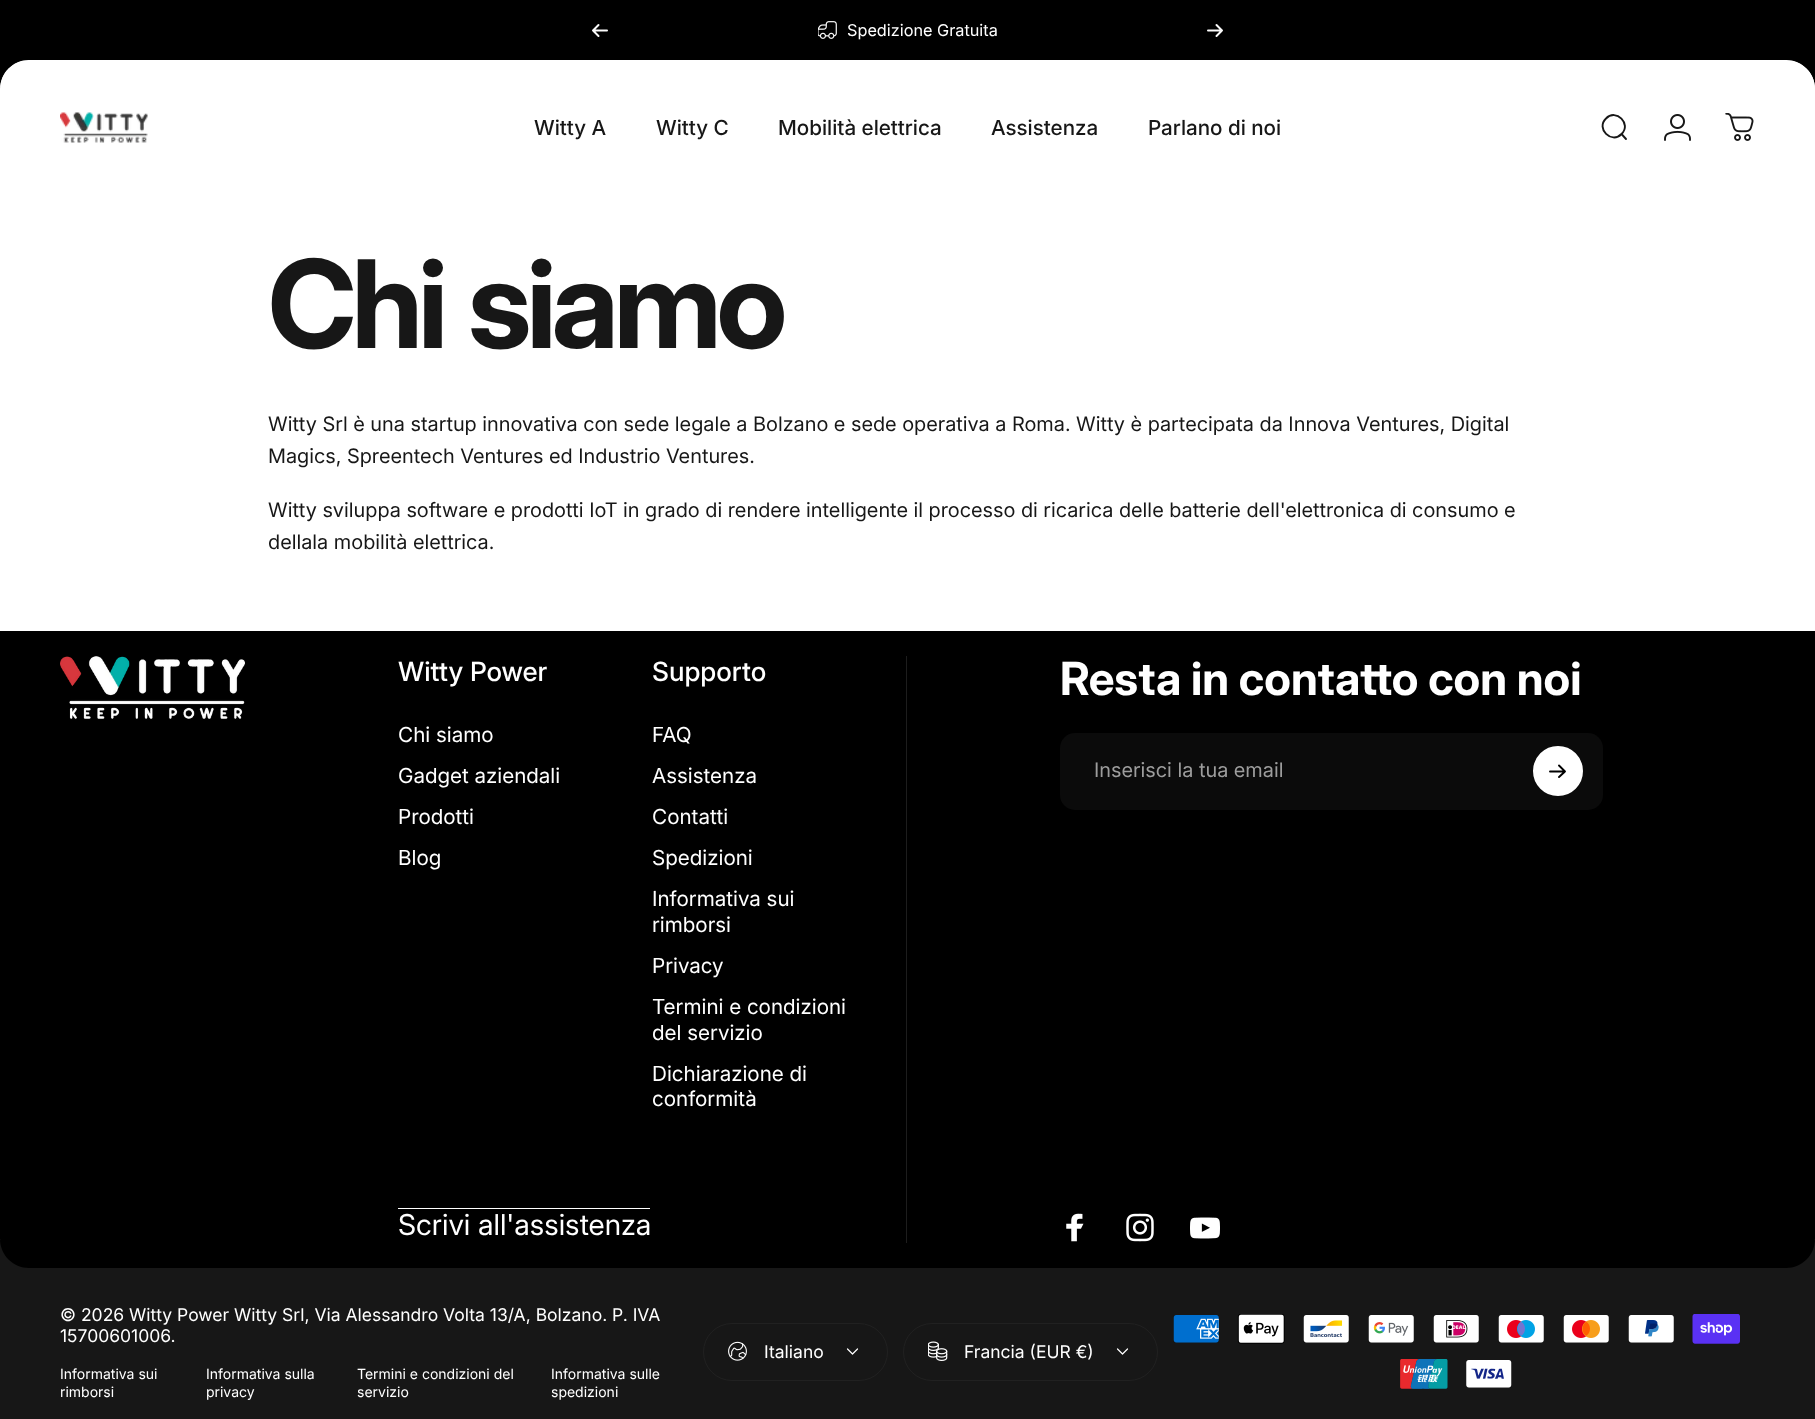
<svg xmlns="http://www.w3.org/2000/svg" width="1815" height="1419">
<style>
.a{font:16.25px Inter;fill:#fff}
.b{font:500 20.75px 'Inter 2';fill:#171717}
.c{font:bold 122px Inter;letter-spacing:-5px;fill:#171717}
.d{font:20px 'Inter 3';fill:#171717}
.e{font:500 26.5px Inter;fill:#fff}
.f{font:20.75px 'Inter 2';fill:#fff}
.g{font:28.75px 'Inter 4';fill:#fff}
.h{font:bold 45.8px Inter;fill:#fff}
.i{font:20px 'Inter 3';fill:#9d9d9d}
.j{font:17.5px Inter;fill:#fff}
.k{font:14px Inter;fill:#fff}
</style>
<rect width="100%" height="100%" fill="#fff"/>
<path fill="#000" d="M0 0h1815v60H0z"/>
<path fill="none" stroke="#fafafa" stroke-width="2" stroke-linecap="round" stroke-linejoin="round" d="M598.5 25l-5.5 5.5m0 0l5.5 5.5m-5.5-5.5h14"/>
<image href="1.png" x="818" y="21" width="19" height="18"/>
<path fill="none" stroke="#fafafa" stroke-width="2" stroke-linecap="round" stroke-linejoin="round" d="M1208 30.5h14m0 0l-5.5-5.5m5.5 5.5l-5.5 5.5"/>
<path fill="#000" fill-rule="evenodd" d="M28.5 60h-28.5v28.5h.5c0-15.5 12.5-28 28-28z"/>
<path fill="#000" fill-rule="evenodd" d="M1786.5 60h28.5v28.5c0-15.5-13-28-28.5-28z"/>
<path fill="#fff" d="M29 60h1757c16 0 29 13 29 29v106h-1815v-106c0-16 13-29 29-29z"/>
<image href="2.png" x="60" y="112" width="88" height="31"/>
<path fill="none" stroke="#171717" stroke-width="1.9" stroke-linecap="round" d="M1626 139l-4.5-5m0 0c10.5-10-5.5-26-15.5-15.5c-10.5 10 5.5 26 15.5 15.5z"/>
<image href="3.png" x="1664" y="114" width="27" height="27"/>
<image href="4.png" x="1725" y="113" width="29" height="28"/>
<path fill="#171717" d="M0 1240h1815v179H0z"/>
<path fill="#000" d="M0 631h1815v608c0 16-13 29-29 29h-1757c-16 0-29-13-29-29z"/>
<path fill="#1d1d1d" d="M906 656h1v587H906z"/>
<image href="5.png" x="60" y="656" width="185" height="63"/>
<path fill="#fff" d="M398 1208h252v1H398z"/>
<rect fill="#0b0b0b" x="1060" y="733" width="543" height="77" rx="15"/>
<circle fill="#fff" stroke="#fff" stroke-width="3" cx="1558" cy="771" r="23.5"/>
<path fill="none" stroke="#000" stroke-width="1.9" stroke-linecap="round" stroke-linejoin="round" d="M1550 771.5h15m0 0l-6-6m6 6l-6 5.5"/>
<image href="6.png" x="1066" y="1213" width="18" height="29"/>
<image href="7.png" x="1126" y="1213" width="28" height="29"/>
<image href="8.png" x="1190" y="1217" width="30" height="22"/>
<rect fill="none" stroke="#212121" x="703.5" y="1323.5" width="184" height="57" rx="28.5"/>
<image href="9.png" x="728" y="1341" width="19" height="20"/>
<path fill="none" stroke="#fff" stroke-width="1.2" stroke-linecap="round" stroke-linejoin="round" d="M847.5 1349l5 5l5-5"/>
<rect fill="none" stroke="#212121" x="903.5" y="1323.5" width="254" height="57" rx="28.5"/>
<image href="10.png" x="928" y="1341" width="20" height="20"/>
<path fill="none" stroke="#fff" stroke-width="1.2" stroke-linecap="round" stroke-linejoin="round" d="M1117.5 1349l5 5l5-5"/>
<image href="11.png" x="1173" y="1315" width="46" height="28"/>
<image href="12.png" x="1237" y="1314" width="48" height="30"/>
<image href="13.png" x="1303" y="1315" width="46" height="28"/>
<image href="14.png" x="1368" y="1315" width="46" height="28"/>
<image href="15.png" x="1433" y="1315" width="46" height="28"/>
<image href="16.png" x="1498" y="1315" width="46" height="28"/>
<image href="17.png" x="1563" y="1315" width="46" height="28"/>
<image href="18.png" x="1628" y="1315" width="46" height="28"/>
<image href="19.png" x="1692" y="1314" width="48" height="30"/>
<image href="20.png" x="1400" y="1359" width="48" height="30"/>
<image href="21.png" x="1466" y="1360" width="46" height="28"/>
<text class="a" x="847" y="36">Spedizione Gratuita</text>
<text class="b" x="534" y="135">Witty A</text>
<text class="b" x="656" y="135">Witty C</text>
<text class="b" x="778" y="135">Mobilità elettrica</text>
<text class="b" x="991" y="135">Assistenza</text>
<text class="b" x="1148" y="135">Parlano di noi</text>
<text class="c" x="268" y="348">Chi</text>
<text class="c" x="468" y="348">siamo</text>
<text class="d" x="268" y="431">Witty Srl è una startup innovativa con sede legale a Bolzano e sede operativa a Roma. Witty è partecipata da Innova Ventures, Digital</text>
<text class="d" x="268" y="463">Magics, Spreentech Ventures ed Industrio Ventures.</text>
<text class="d" x="268" y="517">Witty sviluppa software e prodotti IoT in grado di rendere intelligente il processo di ricarica delle batterie dell'elettronica di consumo e</text>
<text class="d" x="268" y="549">dellala mobilità elettrica.</text>
<text class="e" x="398" y="681">Witty Power</text>
<text class="f" x="398" y="742">Chi siamo</text>
<text class="f" x="398" y="783">Gadget aziendali</text>
<text class="f" x="398" y="824">Prodotti</text>
<text class="f" x="398" y="865">Blog</text>
<text class="e" x="652" y="681">Supporto</text>
<text class="f" x="652" y="742">FAQ</text>
<text class="f" x="652" y="783">Assistenza</text>
<text class="f" x="652" y="824">Contatti</text>
<text class="f" x="652" y="865">Spedizioni</text>
<text class="f" x="652" y="906">Informativa sui</text>
<text class="f" x="652" y="932">rimborsi</text>
<text class="f" x="652" y="973">Privacy</text>
<text class="f" x="652" y="1014">Termini e condizioni</text>
<text class="f" x="652" y="1040">del servizio</text>
<text class="f" x="652" y="1081">Dichiarazione di</text>
<text class="f" x="652" y="1106">conformità</text>
<text class="g" x="398" y="1235">Scrivi all'assistenza</text>
<text class="h" x="1060" y="695">Resta in contatto con noi</text>
<text class="i" x="1094" y="777">Inserisci la tua email</text>
<text class="j" x="60" y="1321">© 2026 Witty Power Witty Srl, Via Alessandro Volta 13/A, Bolzano. P. IVA</text>
<text class="j" x="60" y="1342">15700601006.</text>
<text class="k" x="60" y="1379">Informativa sui</text>
<text class="k" x="60" y="1397">rimborsi</text>
<text class="k" x="206" y="1379">Informativa sulla</text>
<text class="k" x="206" y="1397">privacy</text>
<text class="k" x="357" y="1379">Termini e condizioni del</text>
<text class="k" x="357" y="1397">servizio</text>
<text class="k" x="551" y="1379">Informativa sulle</text>
<text class="k" x="551" y="1397">spedizioni</text>
<text class="j" x="764" y="1358">Italiano</text>
<text class="j" x="964" y="1358">Francia (EUR €)</text>
</svg>
